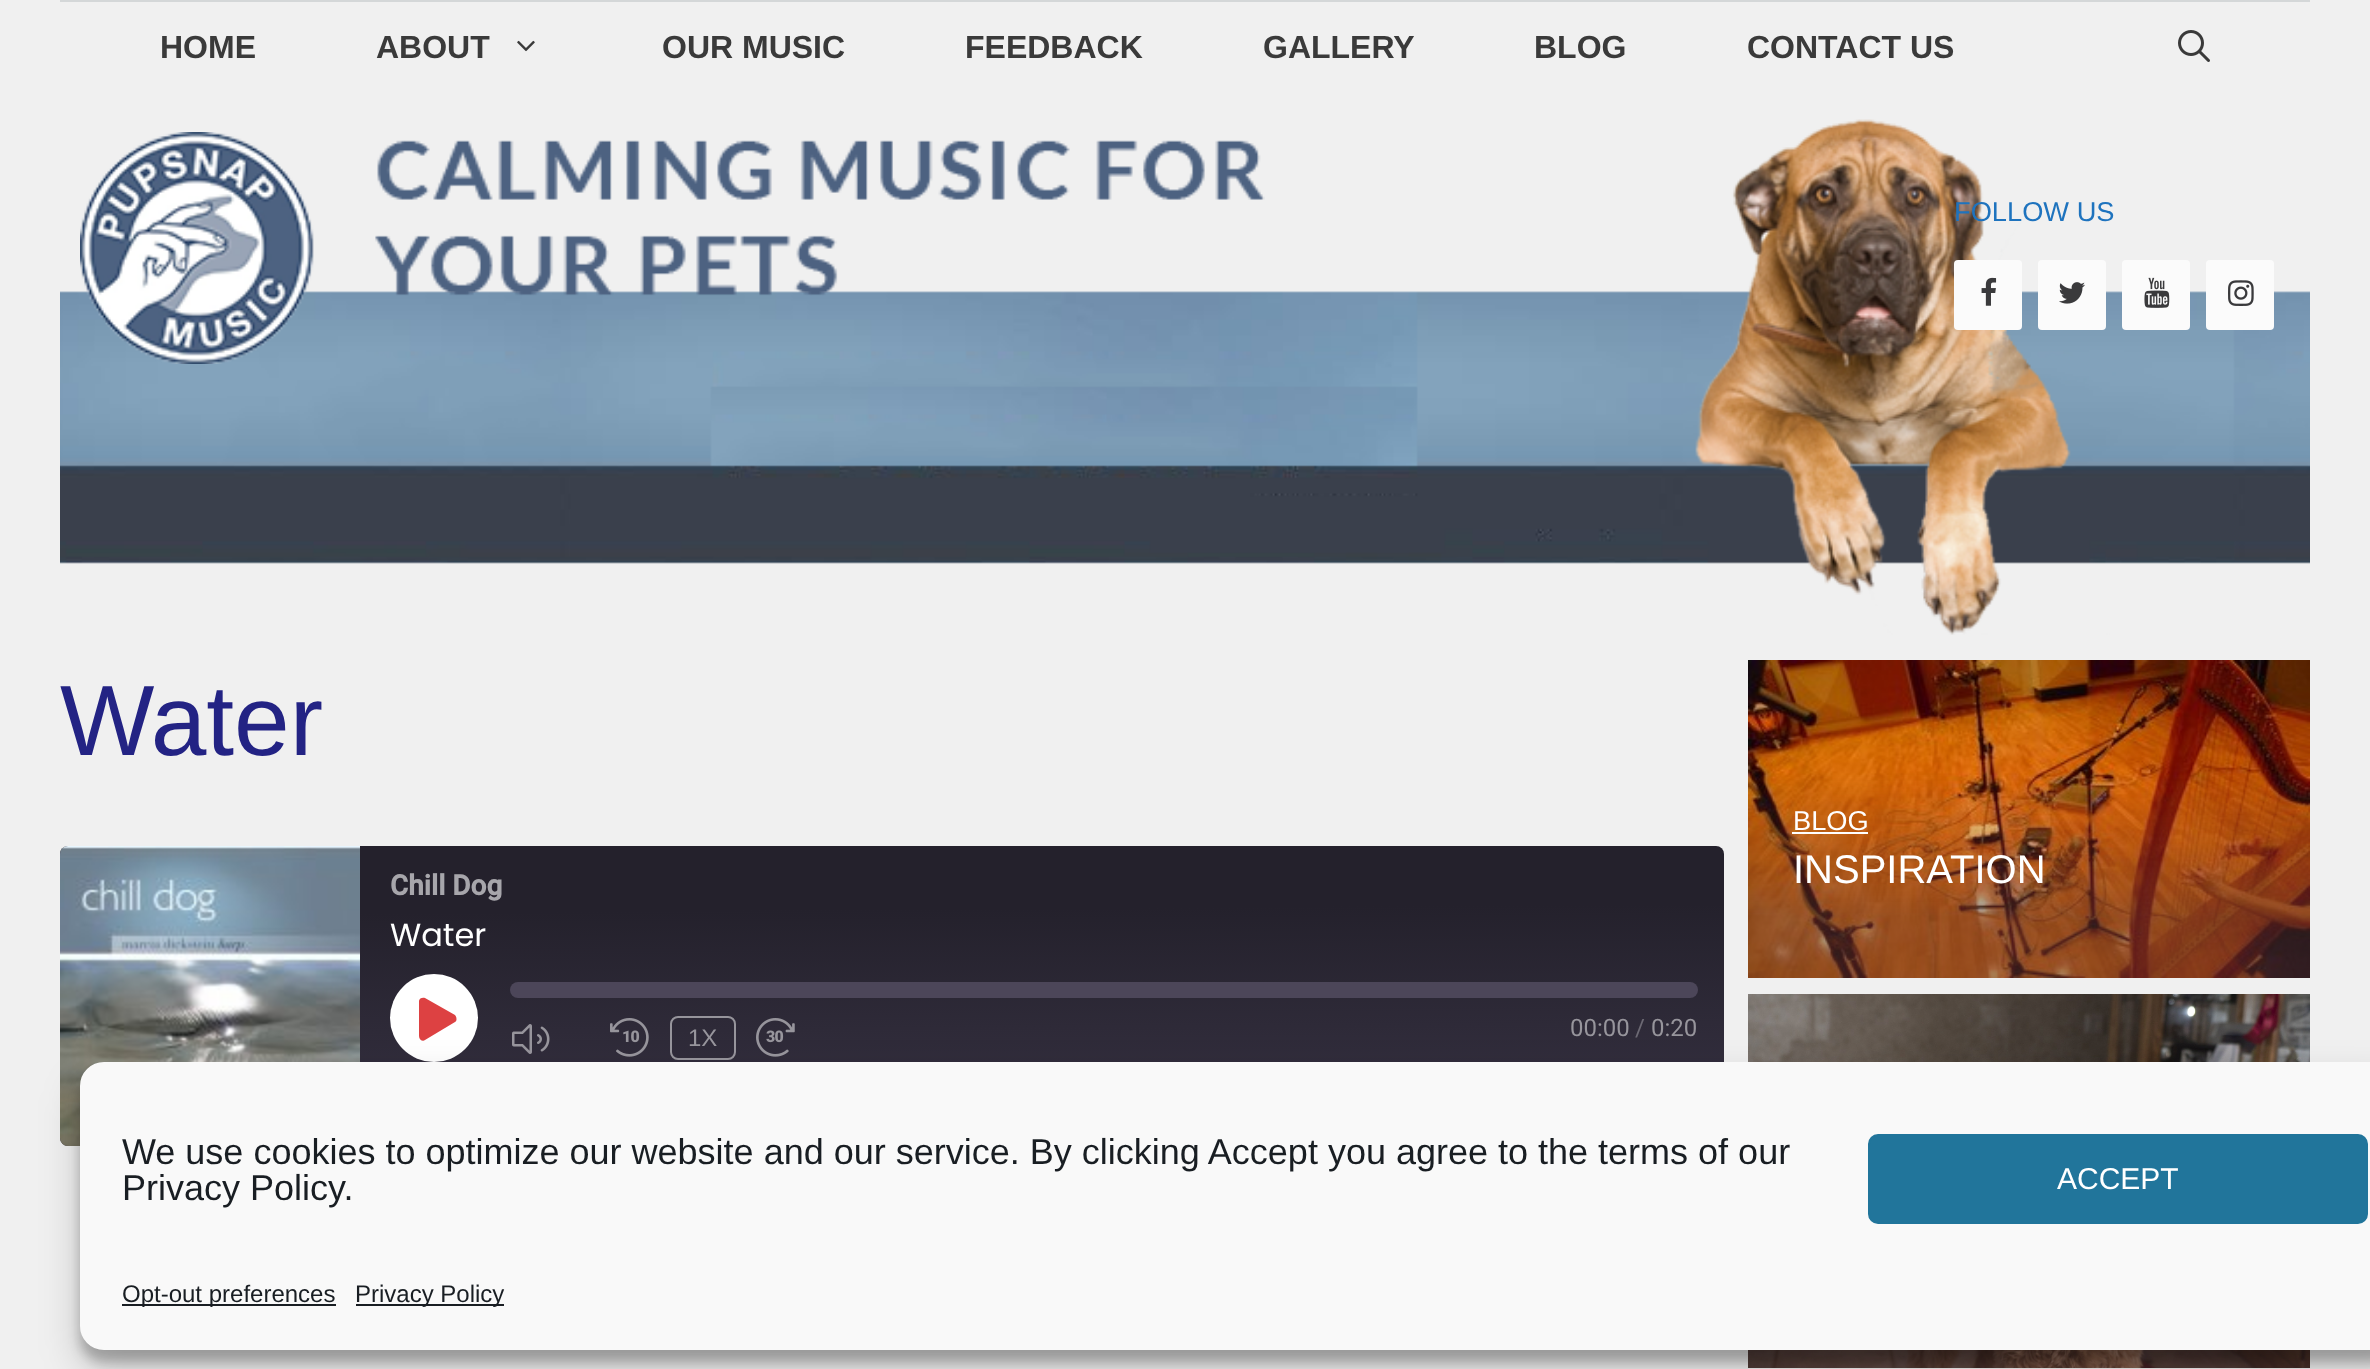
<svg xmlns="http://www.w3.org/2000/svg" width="2370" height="1369">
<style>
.a{font:bold 32px Liberation Sans;fill:#3a3a3a}
.b{font:27.25px Liberation Sans;fill:#1e73be}
.c{font:100px Liberation Sans;fill:#232384}
.d{font:bold 28px Roboto;fill:#a7a6ab}
.e{font:32px Poppins;fill:#fff}
.f{font:24px Liberation Sans;fill:#97959c}
.g{font:24px Roboto;fill:#97959c}
.h{font:24px Roboto;fill:#6d6a74}
.i{font:27.25px Liberation Sans;fill:#fff}
.j{font:40px Liberation Sans;fill:#fff}
.k{font:36px Liberation Sans;fill:#191e23}
.l{font:30px Liberation Sans;fill:#fff}
.m{font:24px Liberation Sans;fill:#191e23}
</style>
<defs>
<linearGradient id="g1" gradientUnits="userSpaceOnUse" x1="893" y1="1151" x2="891" y2="841"><stop offset="0.01" stop-color="#383344"/><stop offset="0.78" stop-color="#24212c"/></linearGradient>
</defs>
<rect width="100%" height="100%" fill="#f0f0f0"/>
<path fill="#d4d7d8" d="M60 0h2250v2H60z"/>
<image href="1.png" x="517" y="40" width="18" height="12"/>
<image href="2.png" x="2178" y="30" width="32" height="32"/>
<image href="3.png" x="60" y="119" width="2250" height="516"/>
<image href="4.png" x="80" y="132" width="1185" height="232"/>
<rect fill="#fbfbfb" x="1954" y="260" width="68" height="70" rx="4"/>
<image href="5.png" x="1981" y="277" width="16" height="29"/>
<rect fill="#fbfbfb" x="2038" y="260" width="68" height="70" rx="4"/>
<image href="6.png" x="2059" y="282" width="26" height="22"/>
<rect fill="#fbfbfb" x="2122" y="260" width="68" height="70" rx="4"/>
<image href="7.png" x="2144" y="277" width="26" height="31"/>
<rect fill="#fbfbfb" x="2206" y="260" width="68" height="70" rx="4"/>
<image href="8.png" x="2228" y="280" width="26" height="26"/>
<rect fill="url(#g1)" x="60" y="846" width="1664" height="300" rx="8"/>
<image href="9.png" x="60" y="846" width="300" height="300"/>
<circle fill="#fff" cx="434" cy="1018" r="44"/>
<path fill="#dd4142" d="M455 1015l-30-17c-2-1-6 0-6 3v35c0 4 4 6 6 4l30-18c2-1 2-5 0-7z"/>
<rect fill="#4c4659" x="510" y="982" width="1188" height="16" rx="8"/>
<image href="10.png" x="512" y="1024" width="38" height="30"/>
<image href="11.png" x="610" y="1018" width="39" height="39"/>
<rect fill="none" stroke="#ffffff80" stroke-width="2" x="671" y="1017" width="64" height="42" rx="7"/>
<image href="12.png" x="756" y="1018" width="39" height="39"/>
<image href="13.png" x="1748" y="660" width="562" height="318"/>
<path fill="#fff" d="M1792 832h76v2H1792z"/>
<image href="14.png" x="1748" y="994" width="562" height="374"/>
<rect fill="#0000003b" filter="blur(6px)" x="80" y="1074" width="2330" height="288" rx="24"/>
<rect fill="#00000030" filter="blur(20px)" x="80" y="1082" width="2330" height="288" rx="24"/>
<rect fill="#f9f9f9" stroke="#f9f9f9" stroke-width="2" x="81" y="1063" width="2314" height="286" rx="23"/>
<rect fill="#21759b" stroke="#21759b" stroke-width="2" x="1869" y="1135" width="498" height="88" rx="9"/>
<path fill="#191e23" d="M122 1304h214v2H122z"/>
<path fill="#191e23" d="M356 1304h148v2H356z"/>
<text class="a" x="160" y="58">HOME</text>
<text class="a" x="376" y="58">ABOUT</text>
<text class="a" x="662" y="58">OUR MUSIC</text>
<text class="a" x="965" y="58">FEEDBACK</text>
<text class="a" x="1263" y="58">GALLERY</text>
<text class="a" x="1534" y="58">BLOG</text>
<text class="a" x="1747" y="58">CONTACT US</text>
<text class="b" x="1954" y="221">FOLLOW US</text>
<text class="c" x="60" y="755">Water</text>
<text class="d" x="390" y="895">Chill Dog</text>
<text class="e" x="390" y="946">Water</text>
<text class="f" x="688" y="1046">1X</text>
<text class="g" x="1570" y="1036">00:00</text>
<text class="h" x="1635" y="1036">/</text>
<text class="g" x="1651" y="1036">0:20</text>
<text class="i" x="1793" y="830">BLOG</text>
<text class="j" x="1793" y="883">INSPIRATION</text>
<text class="k" x="122" y="1164">We use cookies to optimize our website and our service. By clicking Accept you agree to the terms of our</text>
<text class="k" x="122" y="1200">Privacy Policy.</text>
<text class="l" x="2057" y="1189">ACCEPT</text>
<text class="m" x="122" y="1302">Opt-out preferences</text>
<text class="m" x="355" y="1302">Privacy Policy</text>
</svg>
